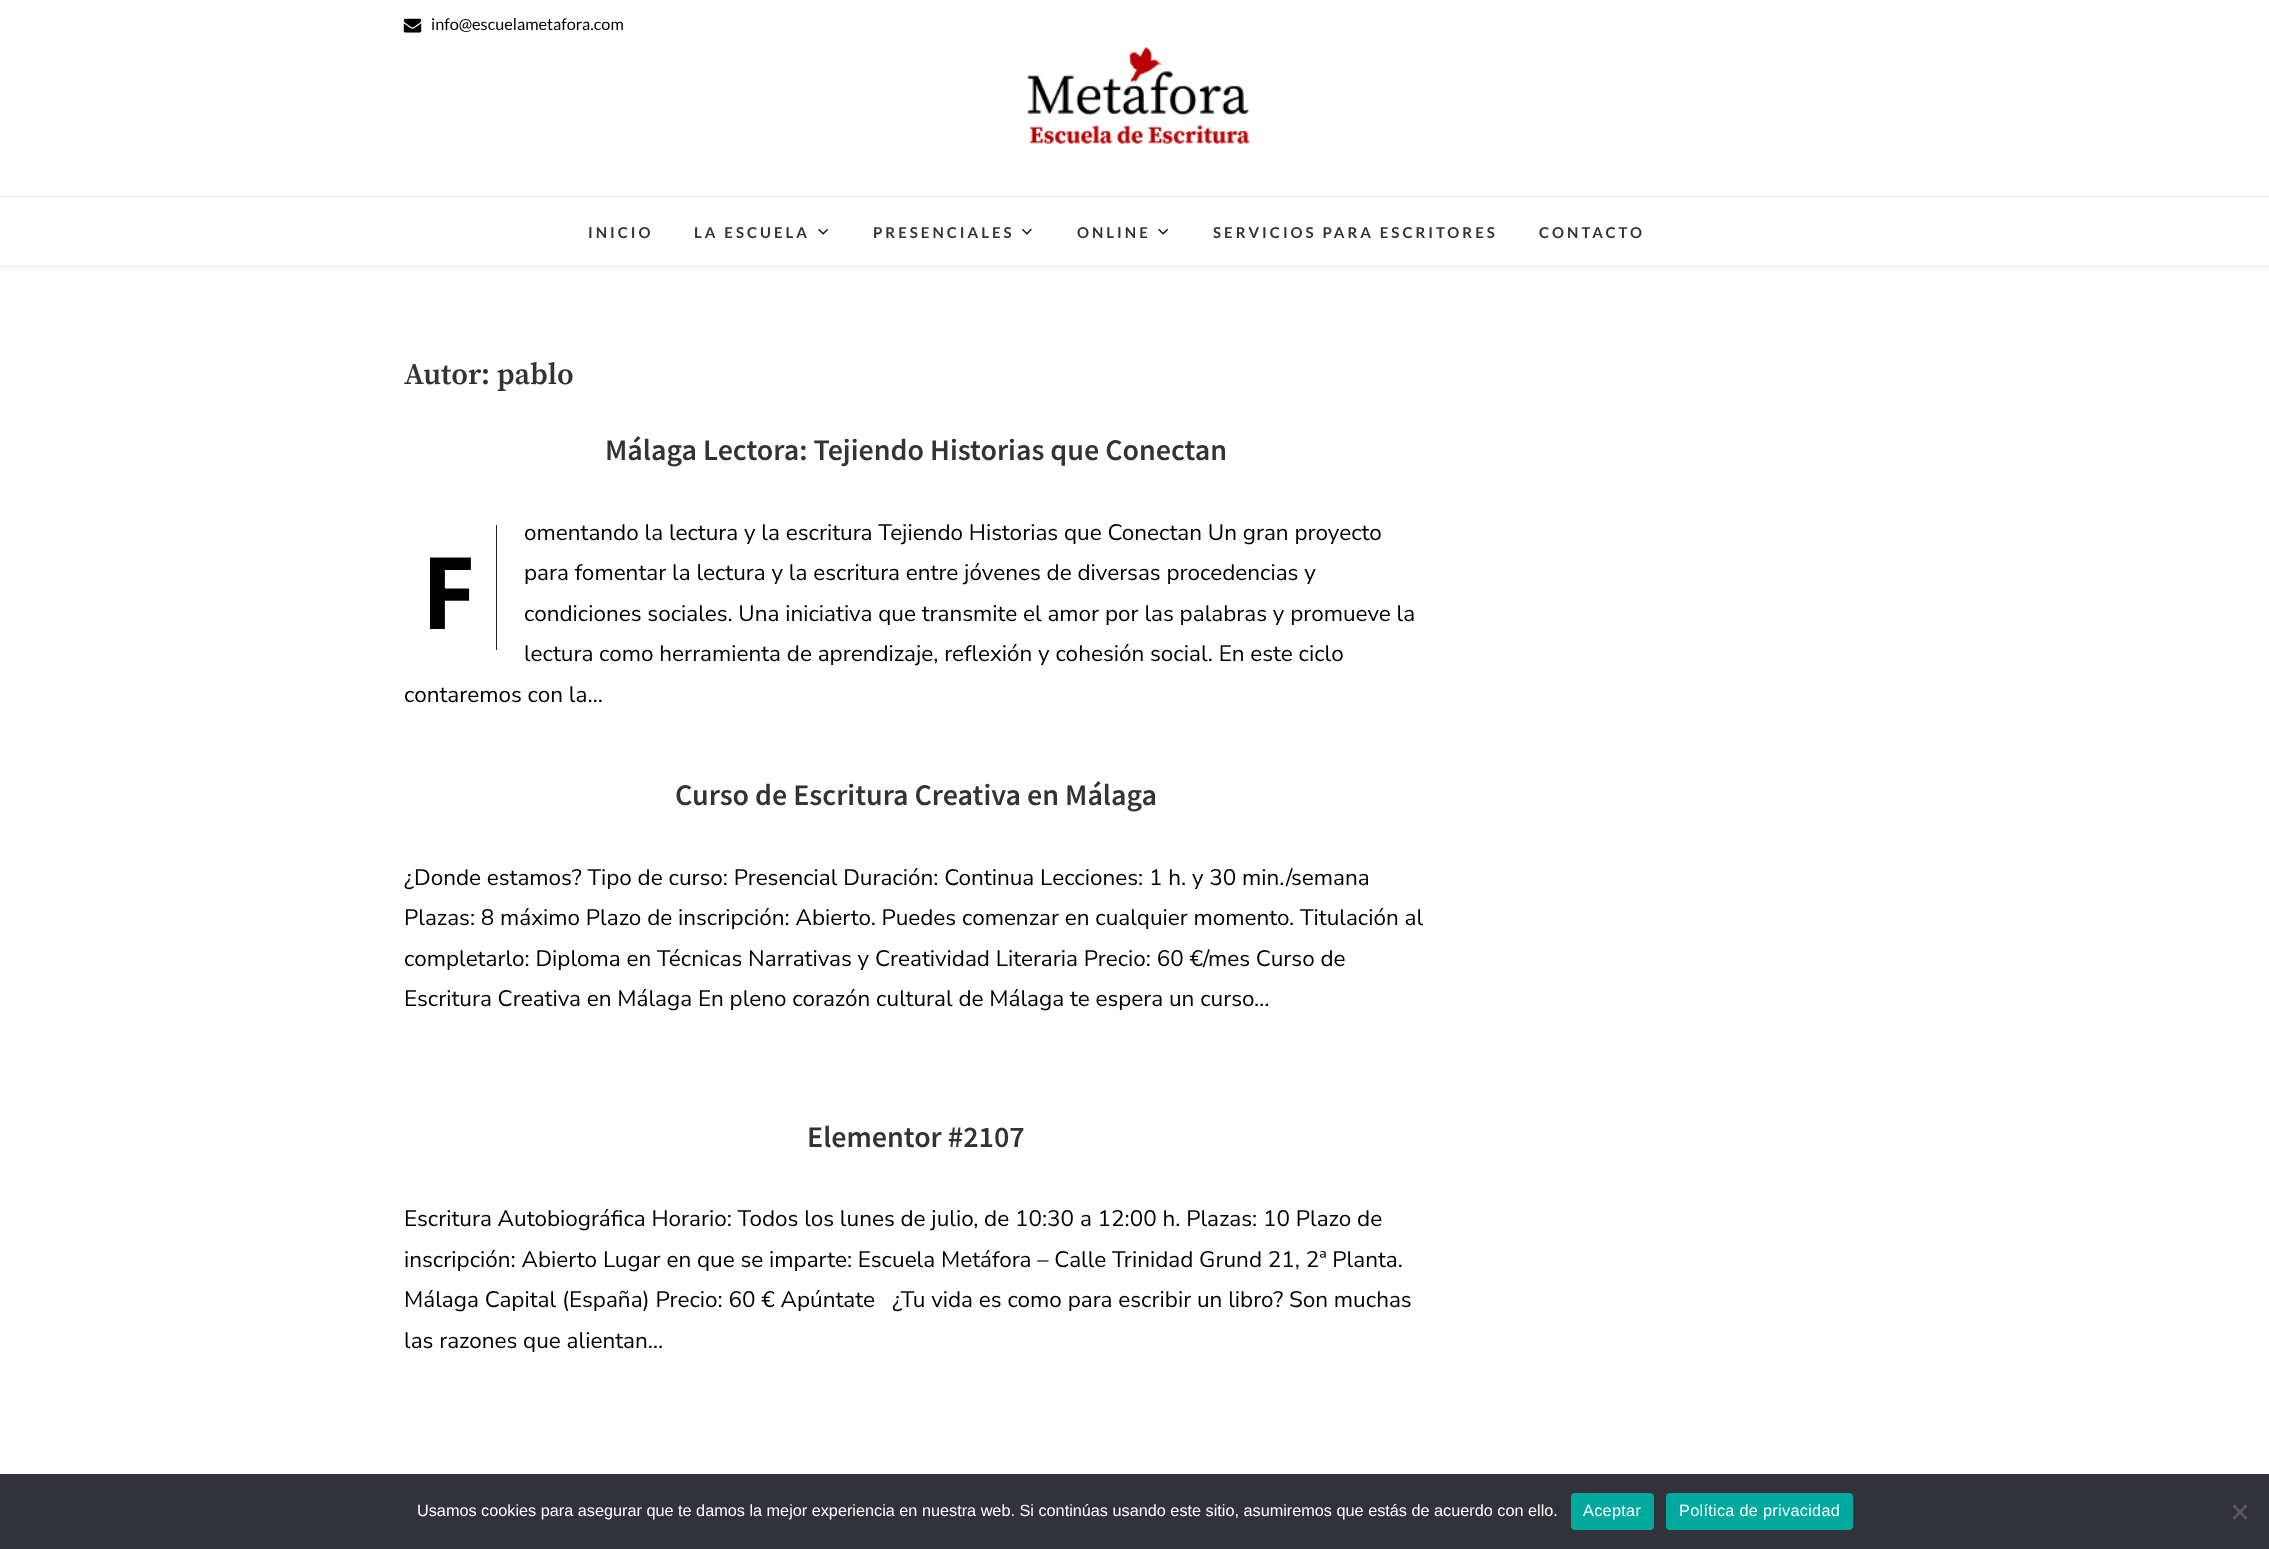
<svg xmlns="http://www.w3.org/2000/svg" width="2269" height="1549">
<style>
.a{font:16.25px Lato;fill:#000}
.b{font:bold 15px Lato;letter-spacing:3px;fill:#333}
.c{font:600 30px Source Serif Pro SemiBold;fill:#333}
.d{font:600 30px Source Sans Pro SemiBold;fill:#333}
.e{font:200 22.5px Nunito Sans;fill:#000}
.f{font:bold 100px Noto Sans;fill:#000}
.g{font:16.25px Liberation Sans;fill:#fff}
.h{font:16.25px Liberation Sans;letter-spacing:0.3px;fill:#fff}
</style>
<rect width="100%" height="100%" fill="#fff"/>
<path fill="#e6e6e6" d="M0 196h2269v1H0z"/>
<image href="1.png" x="403" y="18" width="19" height="15"/>
<image href="2.png" x="1027" y="47" width="223" height="97"/>
<path fill="#e6e6e6" d="M0 266h2269v1H0z"/>
<image href="3.png" x="818" y="228" width="10" height="7"/>
<image href="4.png" x="1022" y="228" width="10" height="7"/>
<image href="3.png" x="1158" y="228" width="10" height="7"/>
<path fill="#222" d="M496 525h1v125H496z"/>
<path fill="#32323a" d="M0 1474h2269v75H0z"/>
<rect fill="#00a99d" x="1571" y="1493" width="83" height="37" rx="4"/>
<rect fill="#00a99d" x="1666" y="1493" width="187" height="37" rx="4"/>
<path fill="#59595d" d="M2245.5 1504.5l2 2l-13 13l-2-1.5z"/>
<path fill="#59595d" d="M2232.5 1506.5l2-2l13 13.5l-2 1.5z"/>
<text class="a" x="431" y="30">info@escuelametafora.com</text>
<text class="b" x="588" y="238">INICIO</text>
<text class="b" x="694" y="238">LA ESCUELA</text>
<text class="b" x="873" y="238">PRESENCIALES</text>
<text class="b" x="1077" y="238">ONLINE</text>
<text class="b" x="1213" y="238">SERVICIOS PARA ESCRITORES</text>
<text class="b" x="1539" y="238">CONTACTO</text>
<text class="c" x="404" y="384">Autor: pablo</text>
<text class="d" x="605" y="460">Málaga Lectora: Tejiendo Historias que Conectan</text>
<text class="e" x="524" y="540">omentando la lectura y la escritura Tejiendo Historias que Conectan Un gran proyecto</text>
<text class="f" x="421" y="629">F</text>
<text class="e" x="524" y="580">para fomentar la lectura y la escritura entre jóvenes de diversas procedencias y</text>
<text class="e" x="524" y="621">condiciones sociales. Una iniciativa que transmite el amor por las palabras y promueve la</text>
<text class="e" x="524" y="661">lectura como herramienta de aprendizaje, reflexión y cohesión social. En este ciclo</text>
<text class="e" x="404" y="702">contaremos con la…</text>
<text class="d" x="675" y="805">Curso de Escritura Creativa en Málaga</text>
<text class="e" x="404" y="885">¿Donde estamos? Tipo de curso: Presencial Duración: Continua Lecciones: 1 h. y 30 min./semana</text>
<text class="e" x="404" y="925">Plazas: 8 máximo Plazo de inscripción: Abierto. Puedes comenzar en cualquier momento. Titulación al</text>
<text class="e" x="404" y="966">completarlo: Diploma en Técnicas Narrativas y Creatividad Literaria Precio: 60 €/mes Curso de</text>
<text class="e" x="404" y="1006">Escritura Creativa en Málaga En pleno corazón cultural de Málaga te espera un curso…</text>
<text class="d" x="807" y="1147">Elementor #2107</text>
<text class="e" x="404" y="1226">Escritura Autobiográfica Horario: Todos los lunes de julio, de 10:30 a 12:00 h. Plazas: 10 Plazo de</text>
<text class="e" x="404" y="1267">inscripción: Abierto Lugar en que se imparte: Escuela Metáfora – Calle Trinidad Grund 21, 2ª Planta.</text>
<text class="e" xml:space="preserve" x="404" y="1307">Málaga Capital (España) Precio: 60 € Apúntate   ¿Tu vida es como para escribir un libro? Son muchas</text>
<text class="e" x="404" y="1348">las razones que alientan…</text>
<text class="g" x="417" y="1516">Usamos cookies para asegurar que te damos la mejor experiencia en nuestra web. Si continúas usando este sitio, asumiremos que estás de acuerdo con ello.</text>
<text class="h" x="1583" y="1516">Aceptar</text>
<text class="h" x="1679" y="1516">Política de privacidad</text>
</svg>
